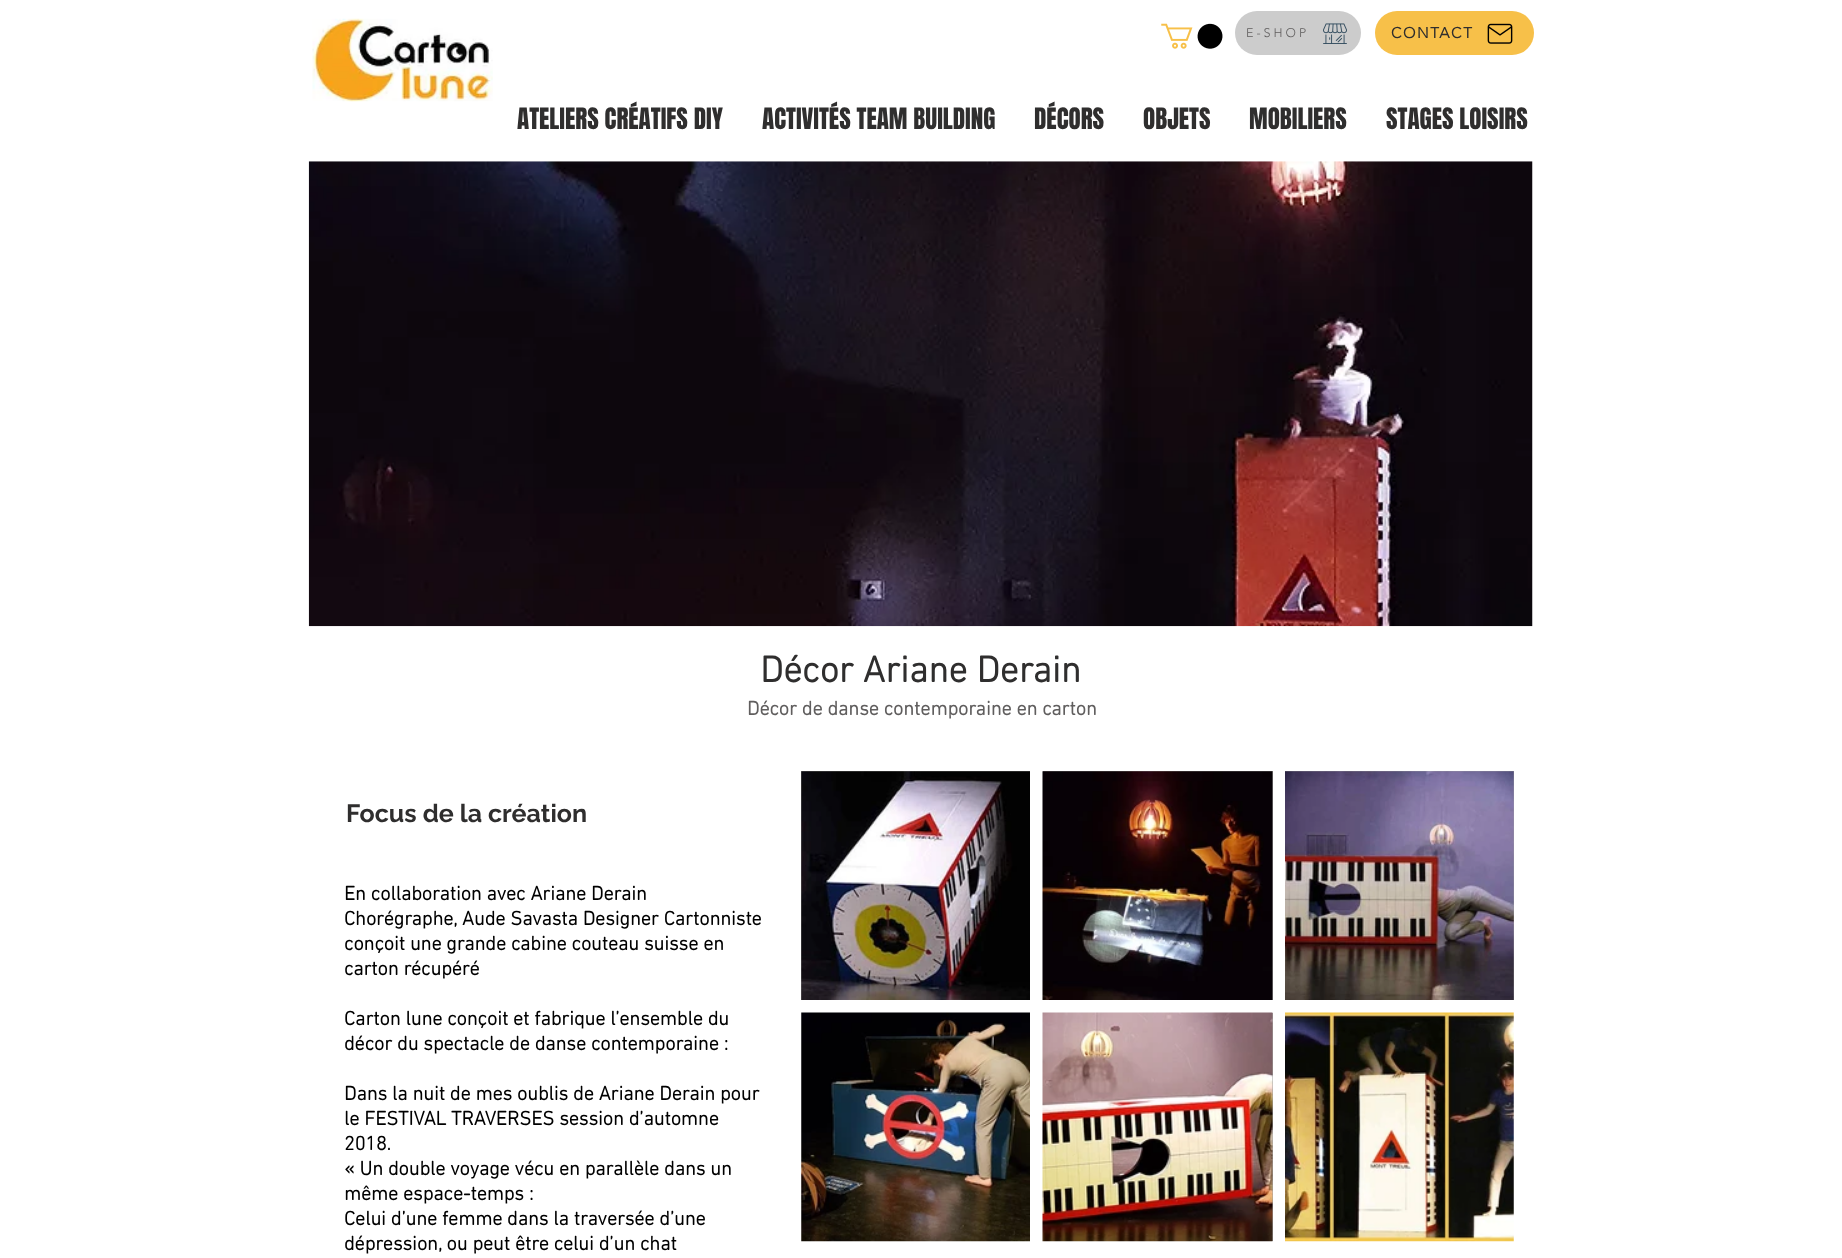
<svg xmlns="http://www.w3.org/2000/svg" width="1842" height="1258">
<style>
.a{font:300 12.5px 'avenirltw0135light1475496';letter-spacing:3px;fill:#605e5e}
.b{font:bold 15px 'avenirltw0135light1475496';letter-spacing:1.5px;fill:#2f2e2e}
.c{font:25px Anton;fill:#2f2e2e}
.d{font:bold 37.5px 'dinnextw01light';fill:#2f2e2e}
.e{font:bold 20px 'dinnextw01light';fill:#605e5e}
.f{font:bold 25px Raleway;fill:#2f2e2e}
.g{font:bold 20px 'dinnextw01light';fill:#000}
</style>
<rect width="100%" height="100%" fill="#fff"/>
<image href="1.png" x="312" y="18" width="181" height="84"/>
<image href="2.png" x="1161" y="23" width="62" height="26"/>
<rect fill="#ccc" x="1235" y="11" width="126" height="44" rx="22"/>
<image href="3.png" x="1323" y="23" width="24" height="21"/>
<rect fill="#f7c049" x="1375" y="11" width="159" height="44" rx="22"/>
<image href="4.png" x="1487" y="23" width="26" height="21"/>
<image href="5.png" x="308" y="161" width="1225" height="466"/>
<path fill="#a0a09f" d="M801 771h229v229H801z"/>
<image href="6.png" x="801" y="771" width="229" height="229"/>
<path fill="#a0a09f" d="M1043 771h230v229H1043z"/>
<image href="7.png" x="1042" y="771" width="231" height="229"/>
<path fill="#a0a09f" d="M1285 771h229v229H1285z"/>
<image href="8.png" x="1285" y="771" width="229" height="229"/>
<image href="9.png" x="801" y="1012" width="229" height="230"/>
<path fill="#a0a09f" d="M1272 1013h1v228H1272z"/>
<image href="10.png" x="1042" y="1012" width="231" height="230"/>
<image href="11.png" x="1285" y="1012" width="229" height="230"/>
<text class="a" x="1246" y="37">E-SHOP</text>
<text class="b" x="1391" y="38">CONTACT</text>
<text class="c" x="517" y="129">ATELIERS CRÉATIFS DIY</text>
<text class="c" x="762" y="129">ACTIVITÉS TEAM BUILDING</text>
<text class="c" x="1034" y="129">DÉCORS</text>
<text class="c" x="1143" y="129">OBJETS</text>
<text class="c" x="1249" y="129">MOBILIERS</text>
<text class="c" x="1386" y="129">STAGES LOISIRS</text>
<text class="d" x="760" y="682">Décor Ariane Derain</text>
<text class="e" x="747" y="715">Décor de danse contemporaine en carton</text>
<text class="f" x="346" y="822">Focus de la création</text>
<text class="g" x="344" y="900">En collaboration avec Ariane Derain</text>
<text class="g" x="344" y="925">Chorégraphe, Aude Savasta Designer Cartonniste</text>
<text class="g" x="344" y="950">conçoit une grande cabine couteau suisse en</text>
<text class="g" x="344" y="975">carton récupéré</text>
<text class="g" x="344" y="1025">Carton lune conçoit et fabrique l’ensemble du</text>
<text class="g" x="344" y="1050">décor du spectacle de danse contemporaine :</text>
<text class="g" x="344" y="1100">Dans la nuit de mes oublis de Ariane Derain pour</text>
<text class="g" x="344" y="1125">le FESTIVAL TRAVERSES session d’automne</text>
<text class="g" x="344" y="1150">2018.</text>
<text class="g" x="344" y="1175">« Un double voyage vécu en parallèle dans un</text>
<text class="g" x="344" y="1200">même espace-temps :</text>
<text class="g" x="344" y="1225">Celui d’une femme dans la traversée d’une</text>
<text class="g" x="344" y="1250">dépression, ou peut être celui d’un chat</text>
</svg>
